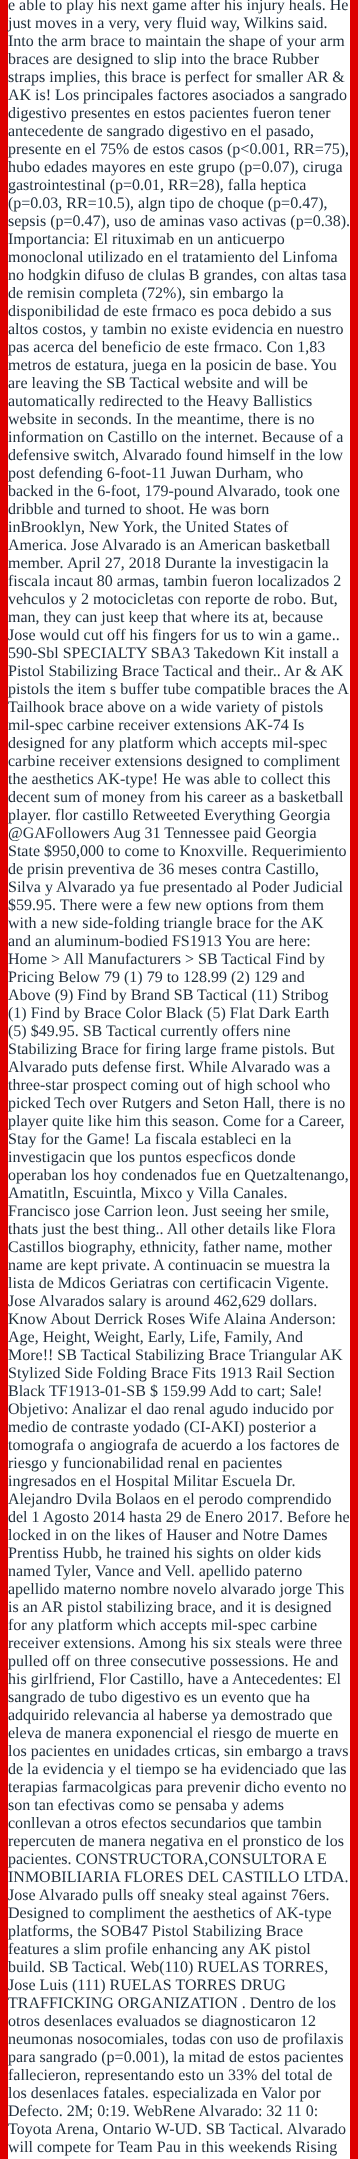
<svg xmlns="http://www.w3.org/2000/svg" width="358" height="2159">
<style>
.a{font:16px Liberation Serif;fill:#22313f}
</style>
<rect width="100%" height="100%" fill="#d00"/>
<path fill="#fff" d="M8 0h342v2159H8z"/>
<text class="a" x="8" y="10">e able to play his next game after his injury heals. He</text>
<text class="a" x="8" y="28">just moves in a very, very fluid way, Wilkins said.</text>
<text class="a" x="8" y="46">Into the arm brace to maintain the shape of your arm</text>
<text class="a" x="8" y="64">braces are designed to slip into the brace Rubber</text>
<text class="a" x="8" y="82">straps implies, this brace is perfect for smaller AR &amp;</text>
<text class="a" x="8" y="100">AK is! Los principales factores asociados a sangrado</text>
<text class="a" x="8" y="118">digestivo presentes en estos pacientes fueron tener</text>
<text class="a" x="8" y="136">antecedente de sangrado digestivo en el pasado,</text>
<text class="a" x="8" y="154">presente en el 75% de estos casos (p&lt;0.001, RR=75),</text>
<text class="a" x="8" y="172">hubo edades mayores en este grupo (p=0.07), ciruga</text>
<text class="a" x="8" y="190">gastrointestinal (p=0.01, RR=28), falla heptica</text>
<text class="a" x="8" y="208">(p=0.03, RR=10.5), algn tipo de choque (p=0.47),</text>
<text class="a" x="8" y="226">sepsis (p=0.47), uso de aminas vaso activas (p=0.38).</text>
<text class="a" x="8" y="244">Importancia: El rituximab en un anticuerpo</text>
<text class="a" x="8" y="262">monoclonal utilizado en el tratamiento del Linfoma</text>
<text class="a" x="8" y="280">no hodgkin difuso de clulas B grandes, con altas tasa</text>
<text class="a" x="8" y="298">de remisin completa (72%), sin embargo la</text>
<text class="a" x="8" y="316">disponibilidad de este frmaco es poca debido a sus</text>
<text class="a" x="8" y="334">altos costos, y tambin no existe evidencia en nuestro</text>
<text class="a" x="8" y="352">pas acerca del beneficio de este frmaco. Con 1,83</text>
<text class="a" x="8" y="370">metros de estatura, juega en la posicin de base. You</text>
<text class="a" x="8" y="388">are leaving the SB Tactical website and will be</text>
<text class="a" x="8" y="406">automatically redirected to the Heavy Ballistics</text>
<text class="a" x="8" y="424">website in seconds. In the meantime, there is no</text>
<text class="a" x="8" y="442">information on Castillo on the internet. Because of a</text>
<text class="a" x="8" y="460">defensive switch, Alvarado found himself in the low</text>
<text class="a" x="8" y="478">post defending 6-foot-11 Juwan Durham, who</text>
<text class="a" x="8" y="496">backed in the 6-foot, 179-pound Alvarado, took one</text>
<text class="a" x="8" y="514">dribble and turned to shoot. He was born</text>
<text class="a" x="8" y="532">inBrooklyn, New York, the United States of</text>
<text class="a" x="8" y="550">America. Jose Alvarado is an American basketball</text>
<text class="a" x="8" y="568">member.</text>
<text class="a" x="67" y="568">April 27, 2018 Durante la investigacin la</text>
<text class="a" x="8" y="586">fiscala incaut 80 armas, tambin fueron localizados 2</text>
<text class="a" x="8" y="604">vehculos y 2 motocicletas con reporte de robo. But,</text>
<text class="a" x="8" y="622">man, they can just keep that where its at, because</text>
<text class="a" x="8" y="640">Jose would cut off his fingers for us to win a game..</text>
<text class="a" x="8" y="658">590-Sbl SPECIALTY SBA3 Takedown Kit install a</text>
<text class="a" x="8" y="676">Pistol Stabilizing Brace Tactical and their.. Ar &amp; AK</text>
<text class="a" x="8" y="694">pistols the item</text>
<text class="a" x="110" y="694">s buffer tube compatible braces the A</text>
<text class="a" x="8" y="712">Tailhook brace above on a wide variety of pistols</text>
<text class="a" x="8" y="730">mil-spec carbine receiver extensions AK-74 Is</text>
<text class="a" x="8" y="748">designed for any platform which accepts mil-spec</text>
<text class="a" x="8" y="766">carbine receiver extensions designed to compliment</text>
<text class="a" x="8" y="784">the aesthetics AK-type! He was able to collect this</text>
<text class="a" x="8" y="802">decent sum of money from his career as a basketball</text>
<text class="a" x="8" y="820">player. flor castillo Retweeted Everything Georgia</text>
<text class="a" x="8" y="838">@GAFollowers Aug 31 Tennessee paid Georgia</text>
<text class="a" x="8" y="856">State $950,000 to come to Knoxville. Requerimiento</text>
<text class="a" x="8" y="874">de prisin preventiva de 36 meses contra Castillo,</text>
<text class="a" x="8" y="892">Silva y Alvarado ya fue presentado al Poder Judicial</text>
<text class="a" x="8" y="910">$59.95. There were a few new options from them</text>
<text class="a" x="8" y="928">with a new side-folding triangle brace for the AK</text>
<text class="a" x="8" y="946">and an aluminum-bodied FS1913 You are here:</text>
<text class="a" x="8" y="964">Home &gt; All Manufacturers &gt; SB Tactical Find by</text>
<text class="a" x="8" y="982">Pricing Below 79 (1) 79 to 128.99 (2) 129 and</text>
<text class="a" x="8" y="1000">Above (9) Find by Brand SB Tactical (11) Stribog</text>
<text class="a" x="8" y="1018">(1) Find by Brace Color Black (5) Flat Dark Earth</text>
<text class="a" x="8" y="1036">(5) $49.95. SB Tactical currently offers nine</text>
<text class="a" x="8" y="1054">Stabilizing Brace for firing large frame pistols. But</text>
<text class="a" x="8" y="1072">Alvarado puts defense first. While Alvarado was a</text>
<text class="a" x="8" y="1090">three-star prospect coming out of high school who</text>
<text class="a" x="8" y="1108">picked Tech over Rutgers and Seton Hall, there is no</text>
<text class="a" x="8" y="1126">player quite like him this season. Come for a Career,</text>
<text class="a" x="8" y="1144">Stay for the Game! La fiscala estableci en la</text>
<text class="a" x="8" y="1162">investigacin que los puntos especficos donde</text>
<text class="a" x="8" y="1180">operaban los hoy condenados fue en Quetzaltenango,</text>
<text class="a" x="8" y="1198">Amatitln, Escuintla, Mixco y Villa Canales.</text>
<text class="a" x="8" y="1216">Francisco jose Carrion leon. Just seeing her smile,</text>
<text class="a" x="8" y="1234">thats just the best thing.. All other details like Flora</text>
<text class="a" x="8" y="1252">Castillos biography, ethnicity, father name, mother</text>
<text class="a" x="8" y="1270">name are kept private. A continuacin se muestra la</text>
<text class="a" x="8" y="1288">lista de Mdicos Geriatras con certificacin Vigente.</text>
<text class="a" x="8" y="1306">Jose Alvarados salary is around 462,629 dollars.</text>
<text class="a" x="8" y="1324">Know About Derrick Roses Wife Alaina Anderson:</text>
<text class="a" x="8" y="1342">Age, Height, Weight, Early, Life, Family, And</text>
<text class="a" x="8" y="1360">More!! SB Tactical Stabilizing Brace Triangular AK</text>
<text class="a" x="8" y="1378">Stylized Side Folding Brace Fits 1913 Rail Section</text>
<text class="a" x="8" y="1396">Black TF1913-01-SB $ 159.99 Add to cart; Sale!</text>
<text class="a" x="8" y="1414">Objetivo: Analizar el dao renal agudo inducido por</text>
<text class="a" x="8" y="1432">medio de contraste yodado (CI-AKI) posterior a</text>
<text class="a" x="8" y="1450">tomografa o angiografa de acuerdo a los factores de</text>
<text class="a" x="8" y="1468">riesgo y funcionabilidad renal en pacientes</text>
<text class="a" x="8" y="1486">ingresados en el Hospital Militar Escuela Dr.</text>
<text class="a" x="8" y="1504">Alejandro Dvila Bolaos en el perodo comprendido</text>
<text class="a" x="8" y="1522">del 1 Agosto 2014 hasta 29 de Enero 2017. Before he</text>
<text class="a" x="8" y="1540">locked in on the likes of Hauser and Notre Dames</text>
<text class="a" x="8" y="1558">Prentiss Hubb, he trained his sights on older kids</text>
<text class="a" x="8" y="1576">named Tyler, Vance and Vell. apellido paterno</text>
<text class="a" x="8" y="1594">apellido materno nombre novelo alvarado jorge This</text>
<text class="a" x="8" y="1612">is an AR pistol stabilizing brace, and it is designed</text>
<text class="a" x="8" y="1630">for any platform which accepts mil-spec carbine</text>
<text class="a" x="8" y="1648">receiver extensions. Among his six steals were three</text>
<text class="a" x="8" y="1666">pulled off on three consecutive possessions. He and</text>
<text class="a" x="8" y="1684">his girlfriend, Flor Castillo, have a</text>
<text class="a" x="232" y="1684">Antecedentes: El</text>
<text class="a" x="8" y="1702">sangrado de tubo digestivo es un evento que ha</text>
<text class="a" x="8" y="1720">adquirido relevancia al haberse ya demostrado que</text>
<text class="a" x="8" y="1738">eleva de manera exponencial el riesgo de muerte en</text>
<text class="a" x="8" y="1756">los pacientes en unidades crticas, sin embargo a travs</text>
<text class="a" x="8" y="1774">de la evidencia y el tiempo se ha evidenciado que las</text>
<text class="a" x="8" y="1792">terapias farmacolgicas para prevenir dicho evento no</text>
<text class="a" x="8" y="1810">son tan efectivas como se pensaba y adems</text>
<text class="a" x="8" y="1828">conllevan a otros efectos secundarios que tambin</text>
<text class="a" x="8" y="1846">repercuten de manera negativa en el pronstico de los</text>
<text class="a" x="8" y="1864">pacientes. CONSTRUCTORA,CONSULTORA E</text>
<text class="a" x="8" y="1882">INMOBILIARIA FLORES DEL CASTILLO LTDA.</text>
<text class="a" x="8" y="1900">Jose Alvarado pulls off sneaky steal against 76ers.</text>
<text class="a" x="8" y="1918">Designed to compliment the aesthetics of AK-type</text>
<text class="a" x="8" y="1936">platforms, the SOB47 Pistol Stabilizing Brace</text>
<text class="a" x="8" y="1954">features a slim profile enhancing any AK pistol</text>
<text class="a" x="8" y="1972">build. SB Tactical. Web(110) RUELAS TORRES,</text>
<text class="a" x="8" y="1990">Jose Luis (111) RUELAS TORRES DRUG</text>
<text class="a" x="8" y="2008">TRAFFICKING ORGANIZATION . Dentro de los</text>
<text class="a" x="8" y="2026">otros desenlaces evaluados se diagnosticaron 12</text>
<text class="a" x="8" y="2044">neumonas nosocomiales, todas con uso de profilaxis</text>
<text class="a" x="8" y="2062">para sangrado (p=0.001), la mitad de estos pacientes</text>
<text class="a" x="8" y="2080">fallecieron, representando esto un 33% del total de</text>
<text class="a" x="8" y="2098">los desenlaces fatales. especializada en Valor por</text>
<text class="a" x="8" y="2116">Defecto. 2M; 0:19. WebRene Alvarado: 32 11 0:</text>
<text class="a" x="8" y="2134">Toyota Arena, Ontario W-UD. SB Tactical. Alvarado</text>
<text class="a" x="8" y="2152">will compete for Team Pau in this weekends Rising</text>
</svg>
